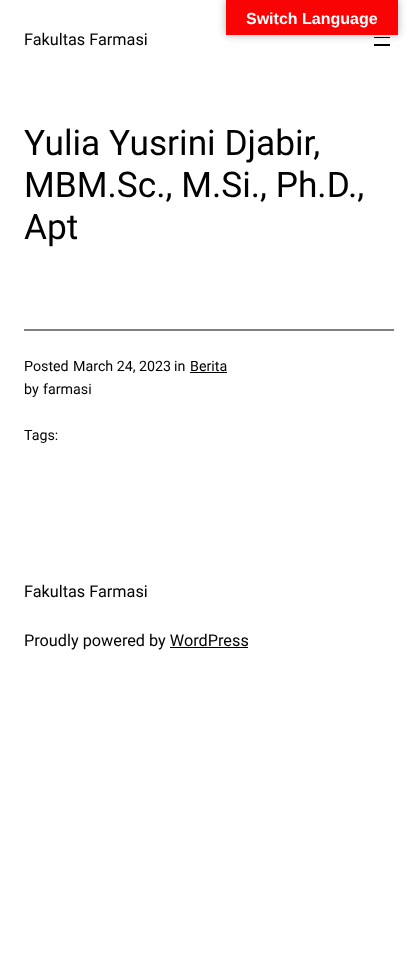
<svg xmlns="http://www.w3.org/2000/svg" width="418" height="954">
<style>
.a{font:bold 16px Liberation Sans;fill:#fff}
.b{font:16.25px Roboto;fill:#000}
.c{font:35.25px Roboto;fill:#000}
.d{font:14.25px Roboto;fill:#000}
</style>
<rect width="100%" height="100%" fill="#fff"/>
<path fill="#000" d="M374 37h16v1H374z"/>
<path fill="#000" d="M374 44h16v2H374z"/>
<path fill="#0000004d" filter="blur(4.5px)" d="M226 0h172v35H226z"/>
<path fill="#f90404" d="M226 0h172v35H226z"/>
<path fill="#808080" d="M24 329h370v2H24z"/>
<path fill="#000" d="M190 372h37v1H190z"/>
<path fill="#000" d="M170 647h78v1H170z"/>
<text class="a" x="246" y="24">Switch Language</text>
<text class="b" x="24" y="45">Fakultas Farmasi</text>
<text class="c" x="24" y="155">Yulia Yusrini Djabir,</text>
<text class="c" x="24" y="197">MBM.Sc., M.Si., Ph.D.,</text>
<text class="c" x="24" y="239">Apt</text>
<text class="d" x="24" y="371">Posted</text>
<text class="d" x="73" y="371">March 24, 2023</text>
<text class="d" x="174" y="371">in</text>
<text class="d" x="190" y="371">Berita</text>
<text class="d" x="24" y="394">by</text>
<text class="d" x="43" y="394">farmasi</text>
<text class="d" x="24" y="440">Tags:</text>
<text class="b" x="24" y="597">Fakultas Farmasi</text>
<text class="b" x="24" y="646">Proudly powered by WordPress</text>
</svg>
